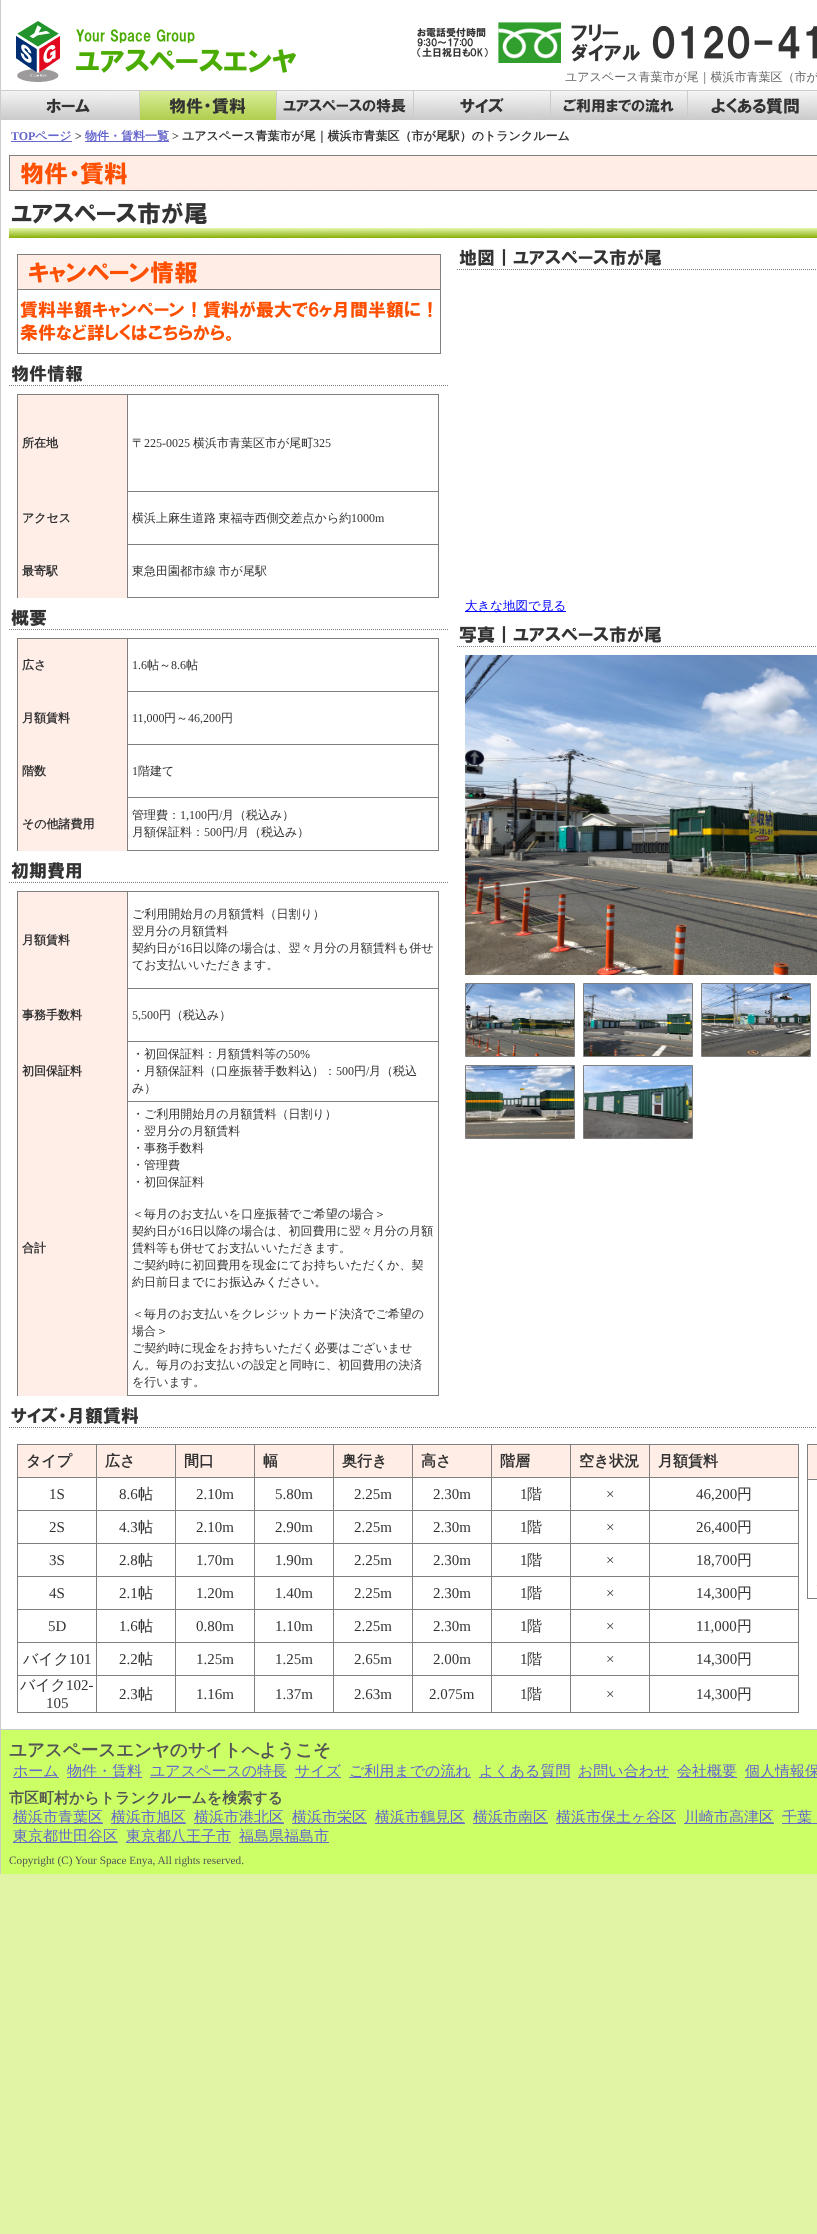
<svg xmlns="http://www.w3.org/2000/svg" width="817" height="2234">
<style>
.a{font:500 12px WenQuanYi Zen Hei;fill:#666}
.b{font:bold 12px Liberation Serif;fill:#66c}
.c{font:bold 12px WenQuanYi Zen Hei;fill:#66c}
.d{font:bold 12px Liberation Serif;fill:#333}
.e{font:bold 12px WenQuanYi Zen Hei;fill:#333}
.f{font:500 12px WenQuanYi Zen Hei;fill:#333}
.g{font:12px Liberation Serif;fill:#333}
.h{font:500 12.5px WenQuanYi Zen Hei;fill:#00f}
.i{font:bold 15px WenQuanYi Zen Hei;fill:#333}
.j{font:15px Liberation Serif;fill:#333}
.k{font:500 15px WenQuanYi Zen Hei;fill:#333}
.l{font:bold 17.5px WenQuanYi Zen Hei;fill:#555}
.m{font:500 15px WenQuanYi Zen Hei;fill:#66c}
.n{font:bold 15px WenQuanYi Zen Hei;fill:#555}
.o{font:11.25px Liberation Serif;fill:#555}
</style>
<rect width="100%" height="100%" fill="#e1f4a5"/>
<path fill="#fff" d="M1 0h816v1729H1z"/>
<path fill="#ccc" d="M0 0h1v1874H0z"/>
<image href="1.png" x="16" y="21" width="281" height="61"/>
<image href="2.png" x="417" y="22" width="400" height="41"/>
<image href="3.png" x="1" y="91" width="138" height="29"/>
<path fill="#ccc" d="M1 90h816v1H1z"/>
<path fill="#ccc" d="M139 90h1v30H139z"/>
<image href="4.png" x="140" y="91" width="136" height="29"/>
<path fill="#ccc" d="M276 90h1v30H276z"/>
<image href="5.png" x="277" y="91" width="136" height="29"/>
<path fill="#ccc" d="M413 90h1v30H413z"/>
<image href="6.png" x="414" y="91" width="136" height="29"/>
<path fill="#ccc" d="M550 90h1v30H550z"/>
<image href="7.png" x="551" y="91" width="136" height="29"/>
<path fill="#ccc" d="M687 90h1v30H687z"/>
<image href="8.png" x="688" y="91" width="129" height="29"/>
<path fill="#66c" d="M11 141h61v1H11z"/>
<path fill="#66c" d="M85 141h84v1H85z"/>
<image href="9.png" x="9" y="155" width="808" height="36"/>
<image href="10.png" x="9" y="202" width="808" height="36"/>
<image href="11.png" x="17" y="254" width="424" height="100"/>
<path fill="none" stroke="#7f7f7f" stroke-dasharray="1 1" d="M9 385.5h440"/>
<image href="12.png" x="11" y="365" width="72" height="17"/>
<path fill="#7f7f7f" d="M17 394h422v1H17z"/>
<path fill="#7f7f7f" d="M438 394h1v204H438z"/>
<path fill="#7f7f7f" d="M128 597h311v1H128z"/>
<path fill="#7f7f7f" d="M17 394h1v204H17z"/>
<path fill="#ffede7" d="M18 395h109v203H18z"/>
<path fill="#7f7f7f" d="M127 491h312v1H127z"/>
<path fill="#7f7f7f" d="M127 544h312v1H127z"/>
<path fill="#7f7f7f" d="M127 544h1v54H127z"/>
<path fill="#7f7f7f" d="M127 394h1v151H127z"/>
<path fill="none" stroke="#7f7f7f" stroke-dasharray="1 1" d="M9 629.5h440"/>
<image href="13.png" x="11" y="609" width="35" height="17"/>
<path fill="#7f7f7f" d="M17 638h422v1H17z"/>
<path fill="#7f7f7f" d="M438 638h1v213H438z"/>
<path fill="#7f7f7f" d="M128 850h311v1H128z"/>
<path fill="#7f7f7f" d="M17 638h1v213H17z"/>
<path fill="#ffede7" d="M18 639h109v212H18z"/>
<path fill="#7f7f7f" d="M127 691h312v1H127z"/>
<path fill="#7f7f7f" d="M127 744h312v1H127z"/>
<path fill="#7f7f7f" d="M127 797h312v1H127z"/>
<path fill="#7f7f7f" d="M127 797h1v54H127z"/>
<path fill="#7f7f7f" d="M127 744h1v54H127z"/>
<path fill="#7f7f7f" d="M127 638h1v107H127z"/>
<path fill="none" stroke="#7f7f7f" stroke-dasharray="1 1" d="M9 882.5h440"/>
<image href="14.png" x="11" y="862" width="70" height="17"/>
<path fill="#7f7f7f" d="M17 891h422v1H17z"/>
<path fill="#7f7f7f" d="M438 891h1v505H438z"/>
<path fill="#7f7f7f" d="M128 1395h311v1H128z"/>
<path fill="#7f7f7f" d="M17 891h1v505H17z"/>
<path fill="#ffede7" d="M18 892h109v504H18z"/>
<path fill="#7f7f7f" d="M127 988h312v1H127z"/>
<path fill="#7f7f7f" d="M127 1041h312v1H127z"/>
<path fill="#7f7f7f" d="M127 1101h312v1H127z"/>
<path fill="#7f7f7f" d="M127 1101h1v295H127z"/>
<path fill="#7f7f7f" d="M127 1041h1v61H127z"/>
<path fill="#7f7f7f" d="M127 891h1v151H127z"/>
<path fill="none" stroke="#7f7f7f" stroke-dasharray="1 1" d="M457 269.5h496"/>
<image href="15.png" x="459" y="249" width="203" height="17"/>
<path fill="#00f" d="M465 611h101v1H465z"/>
<path fill="none" stroke="#7f7f7f" stroke-dasharray="1 1" d="M457 646.5h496"/>
<image href="16.png" x="459" y="626" width="203" height="17"/>
<image href="17.png" x="465" y="655" width="352" height="320"/>
<path fill="none" stroke="#7f7f7f" d="M465.5 983.5h109v73H465.5z"/>
<image href="18.png" x="466" y="984" width="108" height="72"/>
<path fill="none" stroke="#7f7f7f" d="M583.5 983.5h109v73H583.5z"/>
<image href="19.png" x="584" y="984" width="108" height="72"/>
<path fill="none" stroke="#7f7f7f" d="M701.5 983.5h109v73H701.5z"/>
<image href="20.png" x="702" y="984" width="108" height="72"/>
<path fill="none" stroke="#7f7f7f" d="M465.5 1065.5h109v73H465.5z"/>
<image href="21.png" x="466" y="1066" width="108" height="72"/>
<path fill="none" stroke="#7f7f7f" d="M583.5 1065.5h109v73H583.5z"/>
<image href="22.png" x="584" y="1066" width="108" height="72"/>
<path fill="none" stroke="#7f7f7f" stroke-dasharray="1 1" d="M9 1427.5h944"/>
<image href="23.png" x="11" y="1407" width="128" height="17"/>
<path fill="#7f7f7f" d="M17 1444h782v1H17z"/>
<path fill="#7f7f7f" d="M798 1444h1v269H798z"/>
<path fill="#7f7f7f" d="M17 1712h782v1H17z"/>
<path fill="#7f7f7f" d="M17 1444h1v269H17z"/>
<path fill="#ffede6" d="M18 1445h78v32H18z"/>
<path fill="#ffede6" d="M97 1445h78v32H97z"/>
<path fill="#7f7f7f" d="M649 1477h150v1H649z"/>
<path fill="#7f7f7f" d="M649 1510h150v1H649z"/>
<path fill="#7f7f7f" d="M649 1543h150v1H649z"/>
<path fill="#7f7f7f" d="M649 1576h150v1H649z"/>
<path fill="#7f7f7f" d="M649 1609h150v1H649z"/>
<path fill="#7f7f7f" d="M649 1642h150v1H649z"/>
<path fill="#7f7f7f" d="M649 1675h150v1H649z"/>
<path fill="#7f7f7f" d="M649 1675h1v38H649z"/>
<path fill="#7f7f7f" d="M570 1675h80v1H570z"/>
<path fill="#7f7f7f" d="M649 1642h1v34H649z"/>
<path fill="#7f7f7f" d="M570 1642h80v1H570z"/>
<path fill="#7f7f7f" d="M649 1609h1v34H649z"/>
<path fill="#7f7f7f" d="M570 1609h80v1H570z"/>
<path fill="#7f7f7f" d="M649 1576h1v34H649z"/>
<path fill="#7f7f7f" d="M570 1576h80v1H570z"/>
<path fill="#7f7f7f" d="M649 1543h1v34H649z"/>
<path fill="#7f7f7f" d="M570 1543h80v1H570z"/>
<path fill="#7f7f7f" d="M649 1510h1v34H649z"/>
<path fill="#7f7f7f" d="M570 1510h80v1H570z"/>
<path fill="#7f7f7f" d="M649 1477h1v34H649z"/>
<path fill="#7f7f7f" d="M570 1477h80v1H570z"/>
<path fill="#7f7f7f" d="M570 1675h1v38H570z"/>
<path fill="#7f7f7f" d="M491 1675h80v1H491z"/>
<path fill="#7f7f7f" d="M570 1642h1v34H570z"/>
<path fill="#7f7f7f" d="M491 1642h80v1H491z"/>
<path fill="#7f7f7f" d="M570 1609h1v34H570z"/>
<path fill="#7f7f7f" d="M491 1609h80v1H491z"/>
<path fill="#7f7f7f" d="M570 1576h1v34H570z"/>
<path fill="#7f7f7f" d="M491 1576h80v1H491z"/>
<path fill="#7f7f7f" d="M570 1543h1v34H570z"/>
<path fill="#7f7f7f" d="M491 1543h80v1H491z"/>
<path fill="#7f7f7f" d="M570 1510h1v34H570z"/>
<path fill="#7f7f7f" d="M491 1510h80v1H491z"/>
<path fill="#7f7f7f" d="M570 1477h1v34H570z"/>
<path fill="#7f7f7f" d="M491 1477h80v1H491z"/>
<path fill="#7f7f7f" d="M491 1675h1v38H491z"/>
<path fill="#7f7f7f" d="M412 1675h80v1H412z"/>
<path fill="#7f7f7f" d="M491 1642h1v34H491z"/>
<path fill="#7f7f7f" d="M412 1642h80v1H412z"/>
<path fill="#7f7f7f" d="M491 1609h1v34H491z"/>
<path fill="#7f7f7f" d="M412 1609h80v1H412z"/>
<path fill="#7f7f7f" d="M491 1576h1v34H491z"/>
<path fill="#7f7f7f" d="M412 1576h80v1H412z"/>
<path fill="#7f7f7f" d="M491 1543h1v34H491z"/>
<path fill="#7f7f7f" d="M412 1543h80v1H412z"/>
<path fill="#7f7f7f" d="M491 1510h1v34H491z"/>
<path fill="#7f7f7f" d="M412 1510h80v1H412z"/>
<path fill="#7f7f7f" d="M491 1477h1v34H491z"/>
<path fill="#7f7f7f" d="M412 1477h80v1H412z"/>
<path fill="#7f7f7f" d="M412 1675h1v38H412z"/>
<path fill="#7f7f7f" d="M333 1675h80v1H333z"/>
<path fill="#7f7f7f" d="M412 1642h1v34H412z"/>
<path fill="#7f7f7f" d="M333 1642h80v1H333z"/>
<path fill="#7f7f7f" d="M412 1609h1v34H412z"/>
<path fill="#7f7f7f" d="M333 1609h80v1H333z"/>
<path fill="#7f7f7f" d="M412 1576h1v34H412z"/>
<path fill="#7f7f7f" d="M333 1576h80v1H333z"/>
<path fill="#7f7f7f" d="M412 1543h1v34H412z"/>
<path fill="#7f7f7f" d="M333 1543h80v1H333z"/>
<path fill="#7f7f7f" d="M412 1510h1v34H412z"/>
<path fill="#7f7f7f" d="M333 1510h80v1H333z"/>
<path fill="#7f7f7f" d="M412 1477h1v34H412z"/>
<path fill="#7f7f7f" d="M333 1477h80v1H333z"/>
<path fill="#7f7f7f" d="M333 1675h1v38H333z"/>
<path fill="#7f7f7f" d="M254 1675h80v1H254z"/>
<path fill="#7f7f7f" d="M333 1642h1v34H333z"/>
<path fill="#7f7f7f" d="M254 1642h80v1H254z"/>
<path fill="#7f7f7f" d="M333 1609h1v34H333z"/>
<path fill="#7f7f7f" d="M254 1609h80v1H254z"/>
<path fill="#7f7f7f" d="M333 1576h1v34H333z"/>
<path fill="#7f7f7f" d="M254 1576h80v1H254z"/>
<path fill="#7f7f7f" d="M333 1543h1v34H333z"/>
<path fill="#7f7f7f" d="M254 1543h80v1H254z"/>
<path fill="#7f7f7f" d="M333 1510h1v34H333z"/>
<path fill="#7f7f7f" d="M254 1510h80v1H254z"/>
<path fill="#7f7f7f" d="M333 1477h1v34H333z"/>
<path fill="#7f7f7f" d="M254 1477h80v1H254z"/>
<path fill="#7f7f7f" d="M254 1675h1v38H254z"/>
<path fill="#7f7f7f" d="M175 1675h80v1H175z"/>
<path fill="#7f7f7f" d="M254 1642h1v34H254z"/>
<path fill="#7f7f7f" d="M175 1642h80v1H175z"/>
<path fill="#7f7f7f" d="M254 1609h1v34H254z"/>
<path fill="#7f7f7f" d="M175 1609h80v1H175z"/>
<path fill="#7f7f7f" d="M254 1576h1v34H254z"/>
<path fill="#7f7f7f" d="M175 1576h80v1H175z"/>
<path fill="#7f7f7f" d="M254 1543h1v34H254z"/>
<path fill="#7f7f7f" d="M175 1543h80v1H175z"/>
<path fill="#7f7f7f" d="M254 1510h1v34H254z"/>
<path fill="#7f7f7f" d="M175 1510h80v1H175z"/>
<path fill="#7f7f7f" d="M254 1477h1v34H254z"/>
<path fill="#7f7f7f" d="M175 1477h80v1H175z"/>
<path fill="#7f7f7f" d="M175 1675h1v38H175z"/>
<path fill="#7f7f7f" d="M96 1675h80v1H96z"/>
<path fill="#7f7f7f" d="M175 1642h1v34H175z"/>
<path fill="#7f7f7f" d="M96 1642h80v1H96z"/>
<path fill="#7f7f7f" d="M175 1609h1v34H175z"/>
<path fill="#7f7f7f" d="M96 1609h80v1H96z"/>
<path fill="#7f7f7f" d="M175 1576h1v34H175z"/>
<path fill="#7f7f7f" d="M96 1576h80v1H96z"/>
<path fill="#7f7f7f" d="M175 1543h1v34H175z"/>
<path fill="#7f7f7f" d="M96 1543h80v1H96z"/>
<path fill="#7f7f7f" d="M175 1510h1v34H175z"/>
<path fill="#7f7f7f" d="M96 1510h80v1H96z"/>
<path fill="#7f7f7f" d="M175 1477h1v34H175z"/>
<path fill="#7f7f7f" d="M96 1477h80v1H96z"/>
<path fill="#7f7f7f" d="M96 1675h1v38H96z"/>
<path fill="#7f7f7f" d="M17 1675h80v1H17z"/>
<path fill="#7f7f7f" d="M96 1642h1v34H96z"/>
<path fill="#7f7f7f" d="M17 1642h80v1H17z"/>
<path fill="#7f7f7f" d="M96 1609h1v34H96z"/>
<path fill="#7f7f7f" d="M17 1609h80v1H17z"/>
<path fill="#7f7f7f" d="M96 1576h1v34H96z"/>
<path fill="#7f7f7f" d="M17 1576h80v1H17z"/>
<path fill="#7f7f7f" d="M96 1543h1v34H96z"/>
<path fill="#7f7f7f" d="M17 1543h80v1H17z"/>
<path fill="#7f7f7f" d="M96 1510h1v34H96z"/>
<path fill="#7f7f7f" d="M17 1510h80v1H17z"/>
<path fill="#7f7f7f" d="M96 1477h1v34H96z"/>
<path fill="#7f7f7f" d="M17 1477h80v1H17z"/>
<path fill="#7f7f7f" d="M96 1444h1v34H96z"/>
<path fill="#ffede6" d="M176 1445h78v32H176z"/>
<path fill="#7f7f7f" d="M175 1444h1v34H175z"/>
<path fill="#ffede6" d="M255 1445h78v32H255z"/>
<path fill="#7f7f7f" d="M254 1444h1v34H254z"/>
<path fill="#ffede6" d="M334 1445h78v32H334z"/>
<path fill="#7f7f7f" d="M333 1444h1v34H333z"/>
<path fill="#ffede6" d="M413 1445h78v32H413z"/>
<path fill="#7f7f7f" d="M412 1444h1v34H412z"/>
<path fill="#ffede6" d="M492 1445h78v32H492z"/>
<path fill="#7f7f7f" d="M491 1444h1v34H491z"/>
<path fill="#ffede6" d="M571 1445h78v32H571z"/>
<path fill="#7f7f7f" d="M570 1444h1v34H570z"/>
<path fill="#ffede6" d="M650 1445h148v32H650z"/>
<path fill="#7f7f7f" d="M649 1444h1v34H649z"/>
<image href="24.png" x="807" y="1444" width="10" height="155"/>
<path fill="#cf6" d="M1 1730h816v144H1z"/>
<path fill="#ccc" d="M1 1729h816v1H1z"/>
<path fill="#66c" d="M13 1777h46v1H13z"/>
<path fill="#66c" d="M67 1777h75v1H67z"/>
<path fill="#66c" d="M150 1777h137v1H150z"/>
<path fill="#66c" d="M295 1777h46v1H295z"/>
<path fill="#66c" d="M349 1777h122v1H349z"/>
<path fill="#66c" d="M479 1777h91v1H479z"/>
<path fill="#66c" d="M578 1777h91v1H578z"/>
<path fill="#66c" d="M677 1777h60v1H677z"/>
<path fill="#66c" d="M745 1777h72v1H745z"/>
<path fill="#66c" d="M13 1823h90v1H13z"/>
<path fill="#66c" d="M111 1823h75v1H111z"/>
<path fill="#66c" d="M194 1823h90v1H194z"/>
<path fill="#66c" d="M292 1823h75v1H292z"/>
<path fill="#66c" d="M375 1823h90v1H375z"/>
<path fill="#66c" d="M473 1823h75v1H473z"/>
<path fill="#66c" d="M556 1823h120v1H556z"/>
<path fill="#66c" d="M684 1823h90v1H684z"/>
<path fill="#66c" d="M782 1823h35v1H782z"/>
<path fill="#66c" d="M13 1842h105v1H13z"/>
<path fill="#66c" d="M126 1842h105v1H126z"/>
<path fill="#66c" d="M239 1842h90v1H239z"/>
<text class="a" x="565" y="81">ユアスペース青葉市が尾｜横浜市青葉区（市が</text>
<text class="b" x="11" y="140">TOP</text>
<text class="c" x="35" y="140">ページ</text>
<text class="d" x="75" y="140">&gt;</text>
<text class="c" x="85" y="140">物件・賃料一覧</text>
<text class="d" x="172" y="140">&gt;</text>
<text class="e" x="182" y="140">ユアスペース青葉市が尾｜横浜市青葉区（市が尾駅）のトランクルーム</text>
<text class="e" x="22" y="447">所在地</text>
<text class="f" x="132" y="447">〒</text>
<text class="g" x="144" y="447">225-0025</text>
<text class="f" x="193" y="447">横浜市青葉区市が尾町</text>
<text class="g" x="313" y="447">325</text>
<text class="e" x="22" y="522">アクセス</text>
<text class="f" x="132" y="522" word-spacing="-1">横浜上麻生道路 東福寺西側交差点から約</text>
<text class="g" x="351" y="522">1000m</text>
<text class="e" x="22" y="575">最寄駅</text>
<text class="f" x="132" y="575" word-spacing="-1">東急田園都市線 市が尾駅</text>
<text class="e" x="22" y="669">広さ</text>
<text class="g" x="132" y="669">1.6</text>
<text class="f" x="147" y="669">帖～</text>
<text class="g" x="171" y="669">8.6</text>
<text class="f" x="186" y="669">帖</text>
<text class="e" x="22" y="722">月額賃料</text>
<text class="g" x="132" y="722">11,000</text>
<text class="f" x="164" y="722">円～</text>
<text class="g" x="188" y="722">46,200</text>
<text class="f" x="221" y="722">円</text>
<text class="e" x="22" y="775">階数</text>
<text class="g" x="132" y="775">1</text>
<text class="f" x="138" y="775">階建て</text>
<text class="e" x="22" y="828">その他諸費用</text>
<text class="f" x="132" y="819">管理費：</text>
<text class="g" x="180" y="819">1,100</text>
<text class="f" x="207" y="819">円</text>
<text class="g" x="219" y="819">/</text>
<text class="f" x="222" y="819">月（税込み）</text>
<text class="f" x="132" y="836">月額保証料：</text>
<text class="g" x="204" y="836">500</text>
<text class="f" x="222" y="836">円</text>
<text class="g" x="234" y="836">/</text>
<text class="f" x="237" y="836">月（税込み）</text>
<text class="e" x="22" y="944">月額賃料</text>
<text class="f" x="132" y="918">ご利用開始月の月額賃料（日割り）</text>
<text class="f" x="132" y="935">翌月分の月額賃料</text>
<text class="f" x="132" y="952">契約日が</text>
<text class="g" x="180" y="952">16</text>
<text class="f" x="192" y="952">日以降の場合は、翌々月分の月額賃料も併せ</text>
<text class="f" x="132" y="969">てお支払いいただきます。</text>
<text class="e" x="22" y="1019">事務手数料</text>
<text class="g" x="132" y="1019">5,500</text>
<text class="f" x="159" y="1019">円（税込み）</text>
<text class="e" x="22" y="1075">初回保証料</text>
<text class="f" x="132" y="1058">・初回保証料：月額賃料等の</text>
<text class="g" x="288" y="1058">50%</text>
<text class="f" x="132" y="1075">・月額保証料（口座振替手数料込）：</text>
<text class="g" x="336" y="1075">500</text>
<text class="f" x="354" y="1075">円</text>
<text class="g" x="366" y="1075">/</text>
<text class="f" x="369" y="1075">月（税込</text>
<text class="f" x="132" y="1092">み）</text>
<text class="e" x="22" y="1252">合計</text>
<text class="f" x="132" y="1118">・ご利用開始月の月額賃料（日割り）</text>
<text class="f" x="132" y="1135">・翌月分の月額賃料</text>
<text class="f" x="132" y="1152">・事務手数料</text>
<text class="f" x="132" y="1169">・管理費</text>
<text class="f" x="132" y="1186">・初回保証料</text>
<text class="f" x="132" y="1218">＜毎月のお支払いを口座振替でご希望の場合＞</text>
<text class="f" x="132" y="1235">契約日が</text>
<text class="g" x="180" y="1235">16</text>
<text class="f" x="192" y="1235">日以降の場合は、初回費用に翌々月分の月額</text>
<text class="f" x="132" y="1252">賃料等も併せてお支払いいただきます。</text>
<text class="f" x="132" y="1269">ご契約時に初回費用を現金にてお持ちいただくか、契</text>
<text class="f" x="132" y="1286">約日前日までにお振込みください。</text>
<text class="f" x="132" y="1318">＜毎月のお支払いをクレジットカード決済でご希望の</text>
<text class="f" x="132" y="1335">場合＞</text>
<text class="f" x="132" y="1352">ご契約時に現金をお持ちいただく必要はございませ</text>
<text class="f" x="132" y="1369">ん。毎月のお支払いの設定と同時に、初回費用の決済</text>
<text class="f" x="132" y="1386">を行います。</text>
<text class="h" x="465" y="610">大きな地図で見る</text>
<text class="i" x="26" y="1466">タイプ</text>
<text class="i" x="105" y="1466">広さ</text>
<text class="i" x="184" y="1466">間口</text>
<text class="i" x="263" y="1466">幅</text>
<text class="i" x="342" y="1466">奥行き</text>
<text class="i" x="421" y="1466">高さ</text>
<text class="i" x="500" y="1466">階層</text>
<text class="i" x="579" y="1466">空き状況</text>
<text class="i" x="658" y="1466">月額賃料</text>
<text class="j" x="49" y="1499">1S</text>
<text class="j" x="119" y="1499">8.6</text>
<text class="k" x="138" y="1499">帖</text>
<text class="j" x="196" y="1499">2.10m</text>
<text class="j" x="275" y="1499">5.80m</text>
<text class="j" x="354" y="1499">2.25m</text>
<text class="j" x="433" y="1499">2.30m</text>
<text class="j" x="520" y="1499">1</text>
<text class="k" x="527" y="1499">階</text>
<text class="j" x="606" y="1499">×</text>
<text class="j" x="696" y="1499">46,200</text>
<text class="k" x="737" y="1499">円</text>
<text class="j" x="49" y="1532">2S</text>
<text class="j" x="119" y="1532">4.3</text>
<text class="k" x="138" y="1532">帖</text>
<text class="j" x="196" y="1532">2.10m</text>
<text class="j" x="275" y="1532">2.90m</text>
<text class="j" x="354" y="1532">2.25m</text>
<text class="j" x="433" y="1532">2.30m</text>
<text class="j" x="520" y="1532">1</text>
<text class="k" x="527" y="1532">階</text>
<text class="j" x="606" y="1532">×</text>
<text class="j" x="696" y="1532">26,400</text>
<text class="k" x="737" y="1532">円</text>
<text class="j" x="49" y="1565">3S</text>
<text class="j" x="119" y="1565">2.8</text>
<text class="k" x="138" y="1565">帖</text>
<text class="j" x="196" y="1565">1.70m</text>
<text class="j" x="275" y="1565">1.90m</text>
<text class="j" x="354" y="1565">2.25m</text>
<text class="j" x="433" y="1565">2.30m</text>
<text class="j" x="520" y="1565">1</text>
<text class="k" x="527" y="1565">階</text>
<text class="j" x="606" y="1565">×</text>
<text class="j" x="696" y="1565">18,700</text>
<text class="k" x="737" y="1565">円</text>
<text class="j" x="49" y="1598">4S</text>
<text class="j" x="119" y="1598">2.1</text>
<text class="k" x="138" y="1598">帖</text>
<text class="j" x="196" y="1598">1.20m</text>
<text class="j" x="275" y="1598">1.40m</text>
<text class="j" x="354" y="1598">2.25m</text>
<text class="j" x="433" y="1598">2.30m</text>
<text class="j" x="520" y="1598">1</text>
<text class="k" x="527" y="1598">階</text>
<text class="j" x="606" y="1598">×</text>
<text class="j" x="696" y="1598">14,300</text>
<text class="k" x="737" y="1598">円</text>
<text class="j" x="48" y="1631">5D</text>
<text class="j" x="119" y="1631">1.6</text>
<text class="k" x="138" y="1631">帖</text>
<text class="j" x="196" y="1631">0.80m</text>
<text class="j" x="275" y="1631">1.10m</text>
<text class="j" x="354" y="1631">2.25m</text>
<text class="j" x="433" y="1631">2.30m</text>
<text class="j" x="520" y="1631">1</text>
<text class="k" x="527" y="1631">階</text>
<text class="j" x="606" y="1631">×</text>
<text class="j" x="696" y="1631">11,000</text>
<text class="k" x="737" y="1631">円</text>
<text class="k" x="23" y="1664">バイク</text>
<text class="j" x="69" y="1664">101</text>
<text class="j" x="119" y="1664">2.2</text>
<text class="k" x="138" y="1664">帖</text>
<text class="j" x="196" y="1664">1.25m</text>
<text class="j" x="275" y="1664">1.25m</text>
<text class="j" x="354" y="1664">2.65m</text>
<text class="j" x="433" y="1664">2.00m</text>
<text class="j" x="520" y="1664">1</text>
<text class="k" x="527" y="1664">階</text>
<text class="j" x="606" y="1664">×</text>
<text class="j" x="696" y="1664">14,300</text>
<text class="k" x="737" y="1664">円</text>
<text class="k" x="20" y="1690">バイク</text>
<text class="j" x="66" y="1690">102-</text>
<text class="j" x="46" y="1708">105</text>
<text class="j" x="119" y="1699">2.3</text>
<text class="k" x="138" y="1699">帖</text>
<text class="j" x="196" y="1699">1.16m</text>
<text class="j" x="275" y="1699">1.37m</text>
<text class="j" x="354" y="1699">2.63m</text>
<text class="j" x="429" y="1699">2.075m</text>
<text class="j" x="520" y="1699">1</text>
<text class="k" x="527" y="1699">階</text>
<text class="j" x="606" y="1699">×</text>
<text class="j" x="696" y="1699">14,300</text>
<text class="k" x="737" y="1699">円</text>
<text class="l" x="9" y="1756">ユアスペースエンヤのサイトへようこそ</text>
<text class="m" x="13" y="1776">ホーム</text>
<text class="m" x="67" y="1776">物件・賃料</text>
<text class="m" x="150" y="1776">ユアスペースの特長</text>
<text class="m" x="295" y="1776">サイズ</text>
<text class="m" x="349" y="1776">ご利用までの流れ</text>
<text class="m" x="479" y="1776">よくある質問</text>
<text class="m" x="578" y="1776">お問い合わせ</text>
<text class="m" x="677" y="1776">会社概要</text>
<text class="m" x="745" y="1776">個人情報保</text>
<text class="n" x="9" y="1803">市区町村からトランクルームを検索する</text>
<text class="m" x="13" y="1822">横浜市青葉区</text>
<text class="m" x="111" y="1822">横浜市旭区</text>
<text class="m" x="194" y="1822">横浜市港北区</text>
<text class="m" x="292" y="1822">横浜市栄区</text>
<text class="m" x="375" y="1822">横浜市鶴見区</text>
<text class="m" x="473" y="1822">横浜市南区</text>
<text class="m" x="556" y="1822">横浜市保土ヶ谷区</text>
<text class="m" x="684" y="1822">川崎市高津区</text>
<text class="m" x="782" y="1822">千葉</text>
<text class="m" x="13" y="1841">東京都世田谷区</text>
<text class="m" x="126" y="1841">東京都八王子市</text>
<text class="m" x="239" y="1841">福島県福島市</text>
<text class="o" x="9" y="1864">Copyright (C) Your Space Enya, All rights reserved.</text>
</svg>
